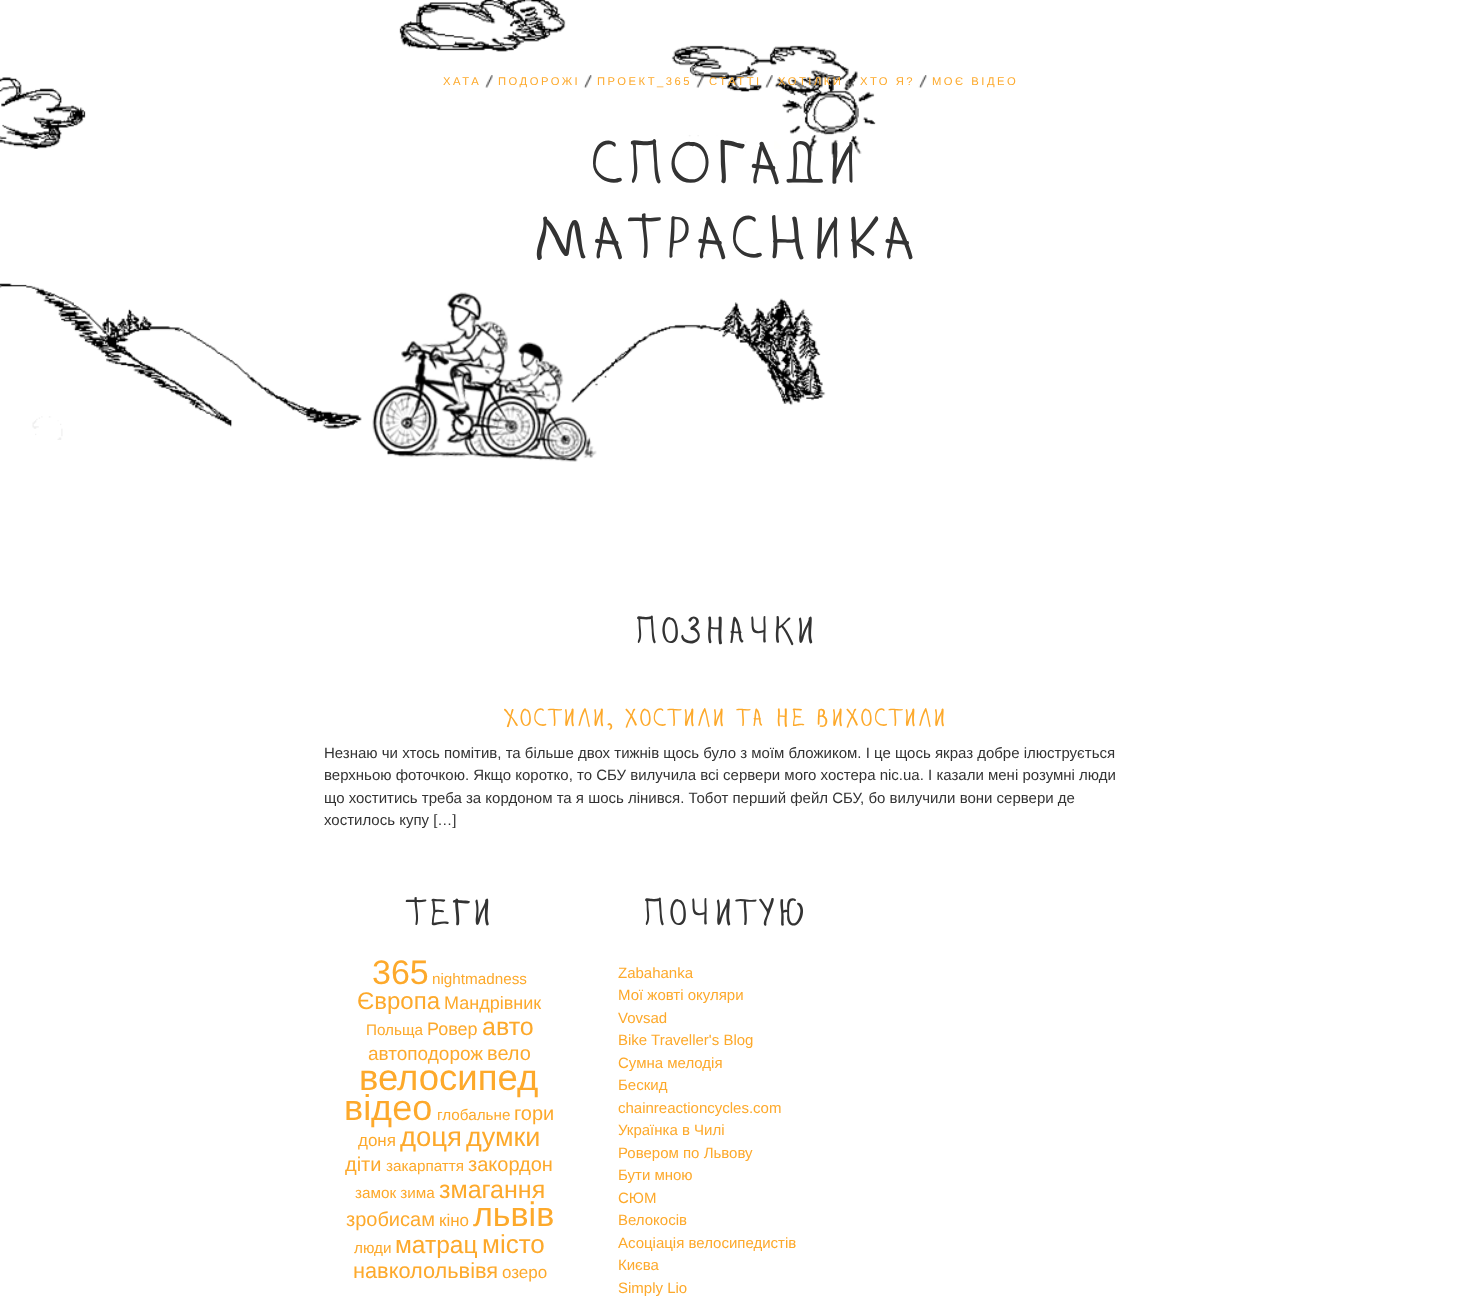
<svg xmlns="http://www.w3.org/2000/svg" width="1473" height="1296">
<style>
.a{font:11.25px Liberation Sans;letter-spacing:2.5px;fill:#fda92b}
.b{font:60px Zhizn;fill:#333}
.c{font:37.5px Zhizn;fill:#333}
.d{font:25px Zhizn;fill:#fda92b}
.e{font:15px Liberation Sans;fill:#333}
.f{font:34px Liberation Sans;fill:#fda92b}
.g{font:15.25px Liberation Sans;fill:#fda92b}
.h{font:24px Liberation Sans;fill:#fda92b}
.i{font:18px Liberation Sans;fill:#fda92b}
.j{font:25px Liberation Sans;fill:#fda92b}
.k{font:19px Liberation Sans;fill:#fda92b}
.l{font:20px Liberation Sans;fill:#fda92b}
.m{font:36.5px Liberation Sans;fill:#fda92b}
.n{font:36px Liberation Sans;fill:#fda92b}
.o{font:17px Liberation Sans;fill:#fda92b}
.p{font:27.5px Liberation Sans;fill:#fda92b}
.q{font:27px Liberation Sans;fill:#fda92b}
.r{font:24.5px Liberation Sans;fill:#fda92b}
.s{font:26px Liberation Sans;fill:#fda92b}
.t{font:21.75px Liberation Sans;fill:#fda92b}
.u{font:15px Liberation Sans;fill:#fda92b}
</style>
<rect width="100%" height="100%" fill="#fff"/>
<image href="1.png" x="399" y="0" width="167" height="52"/>
<image href="2.png" x="0" y="77" width="86" height="72"/>
<image href="3.png" x="671" y="45" width="205" height="114"/>
<image href="4.png" x="0" y="283" width="362" height="157"/>
<image href="5.png" x="485" y="75" width="8" height="13"/>
<image href="6.png" x="583" y="75" width="9" height="13"/>
<image href="7.png" x="696" y="75" width="8" height="13"/>
<image href="8.png" x="765" y="75" width="8" height="13"/>
<image href="9.png" x="848" y="75" width="8" height="13"/>
<image href="10.png" x="918" y="75" width="9" height="13"/>
<image href="12.png" x="571" y="298" width="255" height="108"/>
<image href="11.png" x="372" y="292" width="225" height="170"/>
<text class="a" x="443" y="85">ХАТА</text>
<text class="a" x="498" y="85">ПОДОРОЖІ</text>
<text class="a" x="597" y="85">ПРОЕКТ_365</text>
<text class="a" x="709" y="85">СТАТТІ</text>
<text class="a" x="778" y="85">ХОТІЛКИ</text>
<text class="a" x="860" y="85">ХТО Я?</text>
<text class="a" x="932" y="85">МОЄ ВІДЕО</text>
<text class="b" x="590" y="183">СПОГАДИ</text>
<text class="b" x="532" y="258">МАТРАСНИКА</text>
<text class="c" x="633" y="643">Позначки</text>
<text class="d" x="503" y="726">Хостили, хостили та не вихостили</text>
<text class="e" x="324" y="758">Незнаю чи хтось помітив, та більше двох тижнів щось було з моїм бложиком. І це щось якраз добре ілюструється</text>
<text class="e" x="324" y="780">верхньою фоточкою. Якщо коротко, то СБУ вилучила всі сервери мого хостера nic.ua. І казали мені розумні люди</text>
<text class="e" x="324" y="803">що хоститись треба за кордоном та я шось лінився. Тобот перший фейл СБУ, бо вилучили вони сервери де</text>
<text class="e" x="324" y="825">хостилось купу […]</text>
<text class="c" x="405" y="925">Теги</text>
<text class="f" x="372" y="984">365</text>
<text class="g" x="432" y="984">nightmadness</text>
<text class="h" x="357" y="1009">Європа</text>
<text class="i" x="444" y="1009">Мандрівник</text>
<text class="g" x="366" y="1035">Польща</text>
<text class="i" x="427" y="1035">Ровер</text>
<text class="j" x="482" y="1035">авто</text>
<text class="k" x="368" y="1060">автоподорож</text>
<text class="l" x="487" y="1060">вело</text>
<text class="m" x="359" y="1090">велосипед</text>
<text class="n" x="344" y="1120">відео</text>
<text class="g" x="437" y="1120">глобальне</text>
<text class="l" x="514" y="1120">гори</text>
<text class="o" x="358" y="1146">доня</text>
<text class="p" x="400" y="1146">доця</text>
<text class="q" x="466" y="1146">думки</text>
<text class="l" x="345" y="1171">діти</text>
<text class="g" x="386" y="1171">закарпаття</text>
<text class="l" x="468" y="1171">закордон</text>
<text class="g" x="355" y="1198">замок зима</text>
<text class="j" x="439" y="1198">змагання</text>
<text class="l" x="346" y="1226">зробисам</text>
<text class="o" x="439" y="1226">кіно</text>
<text class="f" x="473" y="1226">львів</text>
<text class="g" x="354" y="1253">люди</text>
<text class="r" x="395" y="1253">матрац</text>
<text class="s" x="482" y="1253">місто</text>
<text class="t" x="353" y="1278">навколольвівя</text>
<text class="o" x="502" y="1278">озеро</text>
<text class="c" x="641" y="925">Почитую</text>
<text class="u" x="618" y="978">Zabahanka</text>
<text class="u" x="618" y="1000">Мої жовті окуляри</text>
<text class="u" x="618" y="1023">Vovsad</text>
<text class="u" x="618" y="1045">Bike Traveller's Blog</text>
<text class="u" x="618" y="1068">Сумна мелодія</text>
<text class="u" x="618" y="1090">Бескид</text>
<text class="u" x="618" y="1113">chainreactioncycles.com</text>
<text class="u" x="618" y="1135">Українка в Чилі</text>
<text class="u" x="618" y="1158">Ровером по Львову</text>
<text class="u" x="618" y="1180">Бути мною</text>
<text class="u" x="618" y="1203">СЮМ</text>
<text class="u" x="618" y="1225">Велокосів</text>
<text class="u" x="618" y="1248">Асоціація велосипедистів</text>
<text class="u" x="618" y="1270">Києва</text>
<text class="u" x="618" y="1293">Simply Lio</text>
</svg>
